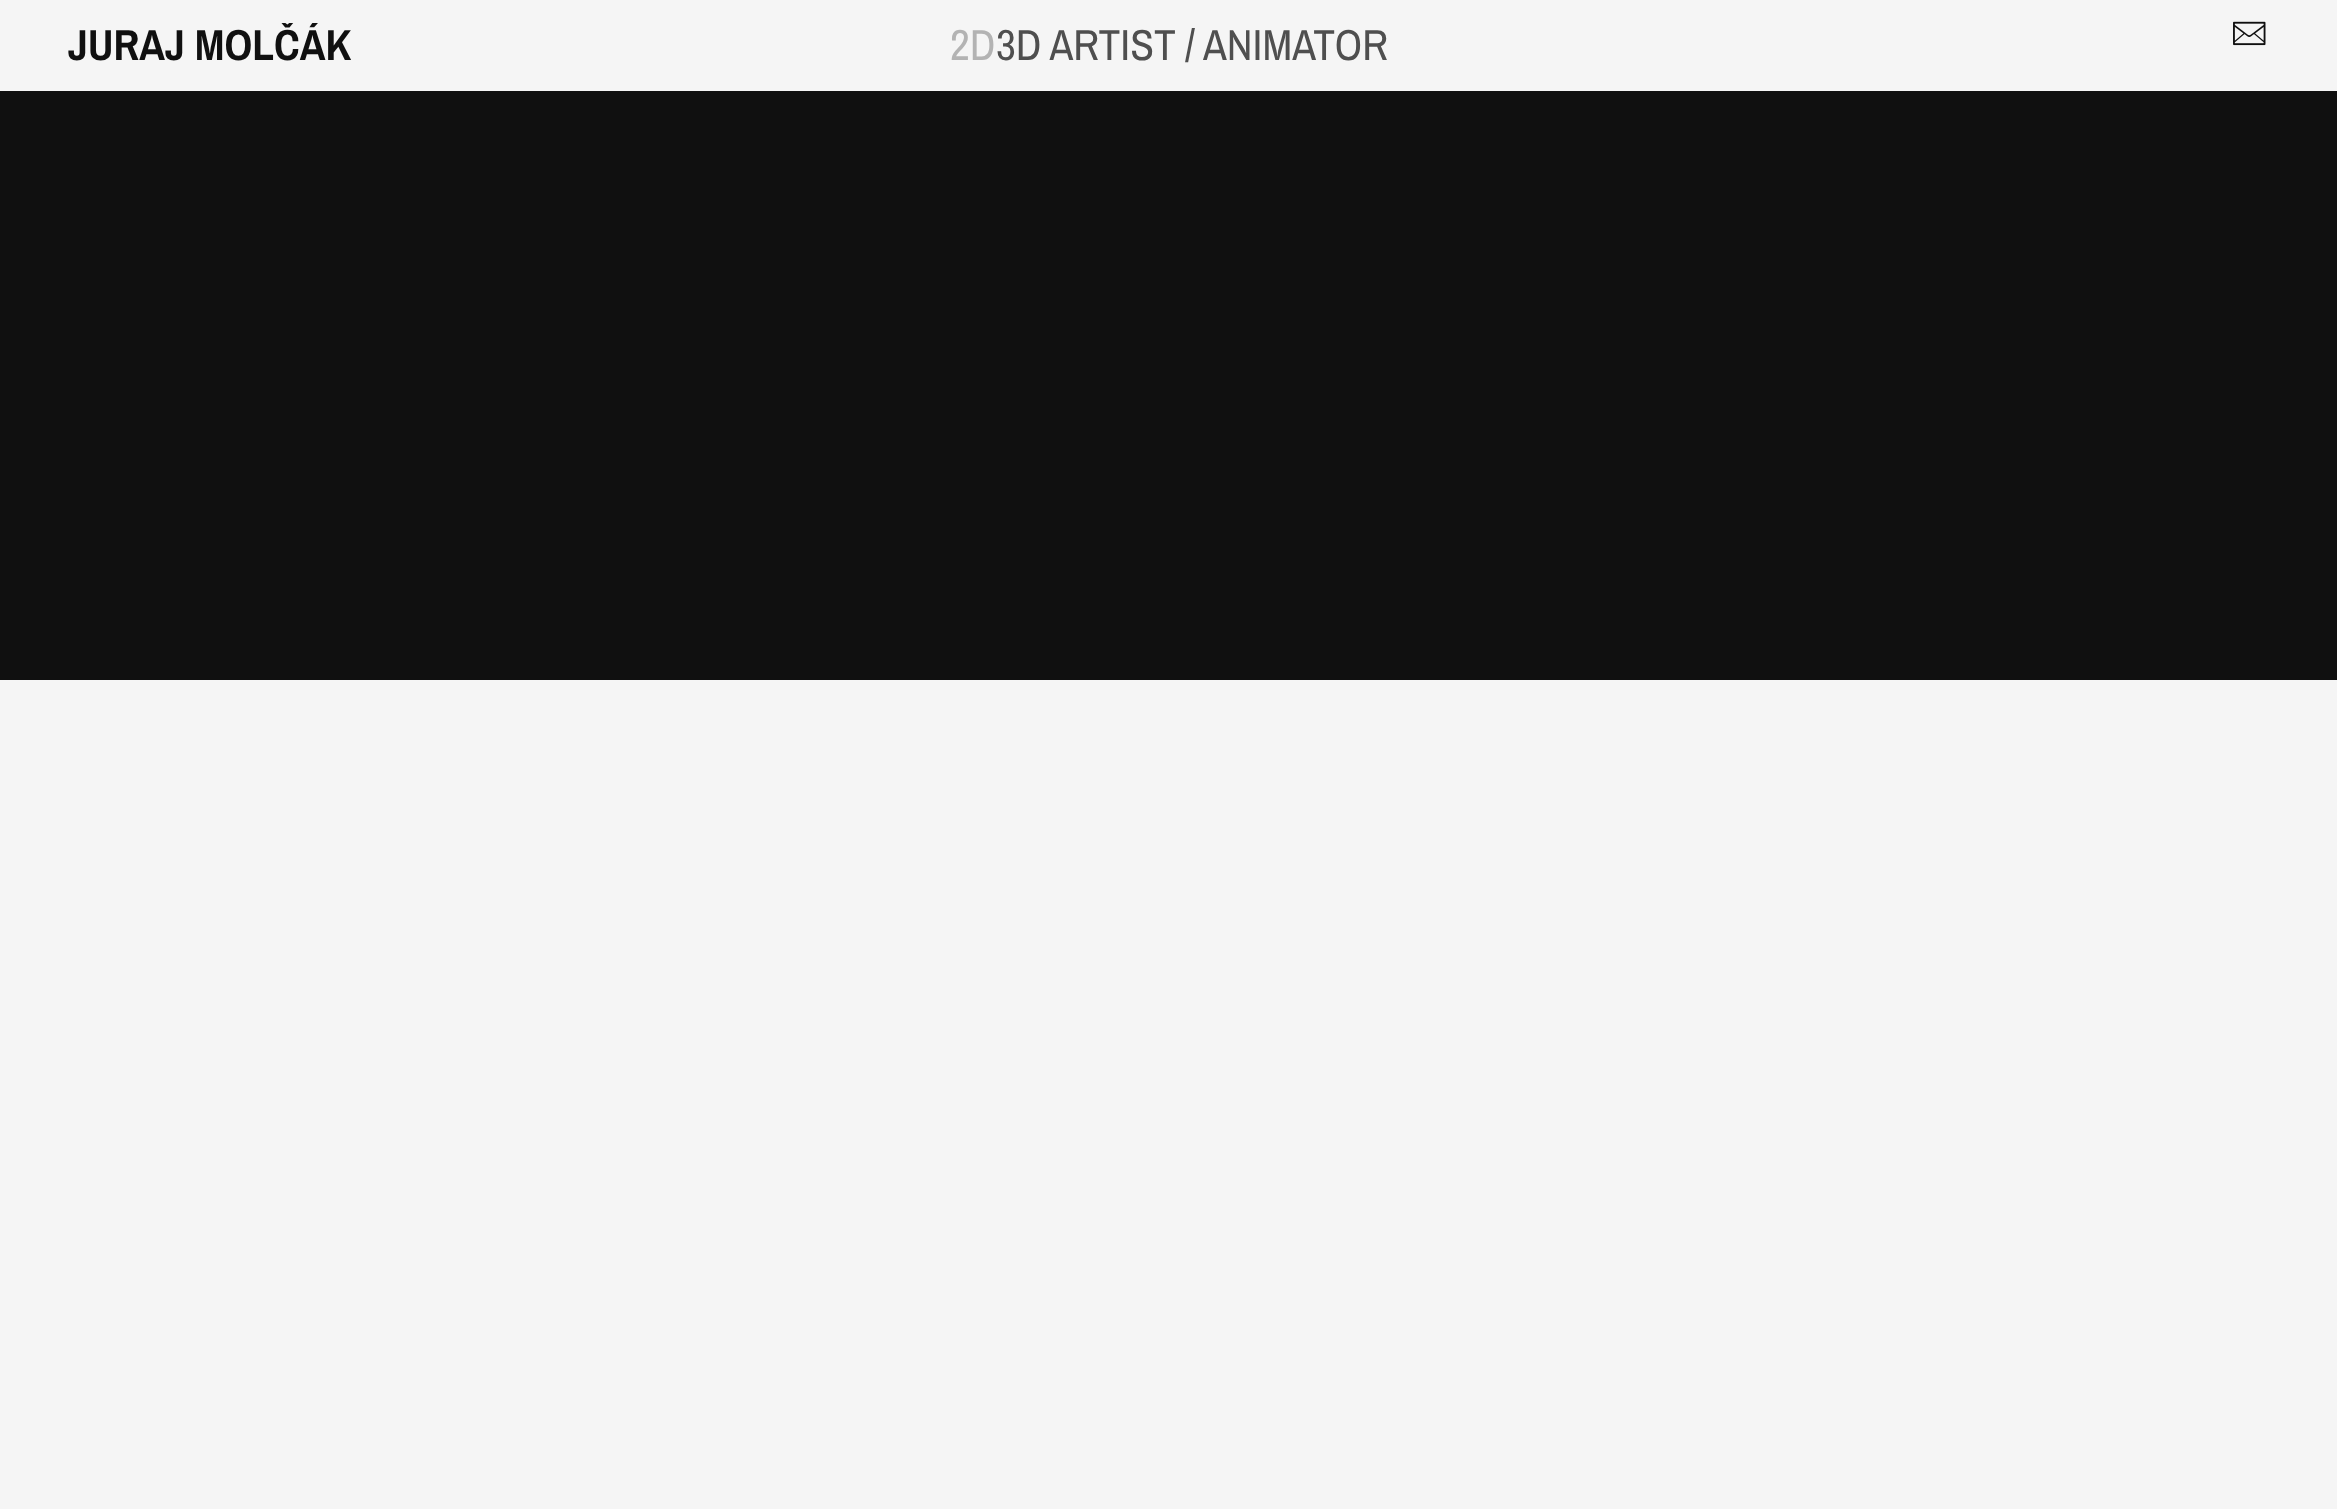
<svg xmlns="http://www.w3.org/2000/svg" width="2337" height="1509">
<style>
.a{font:bold 43.5px Archivo Narrow;fill:#101010}
.b{font:43.5px Archivo Narrow;fill:#b3b3b3}
.c{font:43.5px Archivo Narrow;fill:#4f4f4f}
</style>
<rect width="100%" height="100%" fill="#101010"/>
<path fill="#f5f5f5" d="M0 0h2337v91H0z"/>
<image href="1.png" x="2233" y="21" width="33" height="25"/>
<path fill="#f5f5f5" d="M0 680h2337v829H0z"/>
<text class="a" x="68" y="60">JURAJ MOLČÁK</text>
<text class="b" x="950" y="60">2D</text>
<text class="c" x="996" y="60">3D ARTIST / ANIMATOR</text>
</svg>
